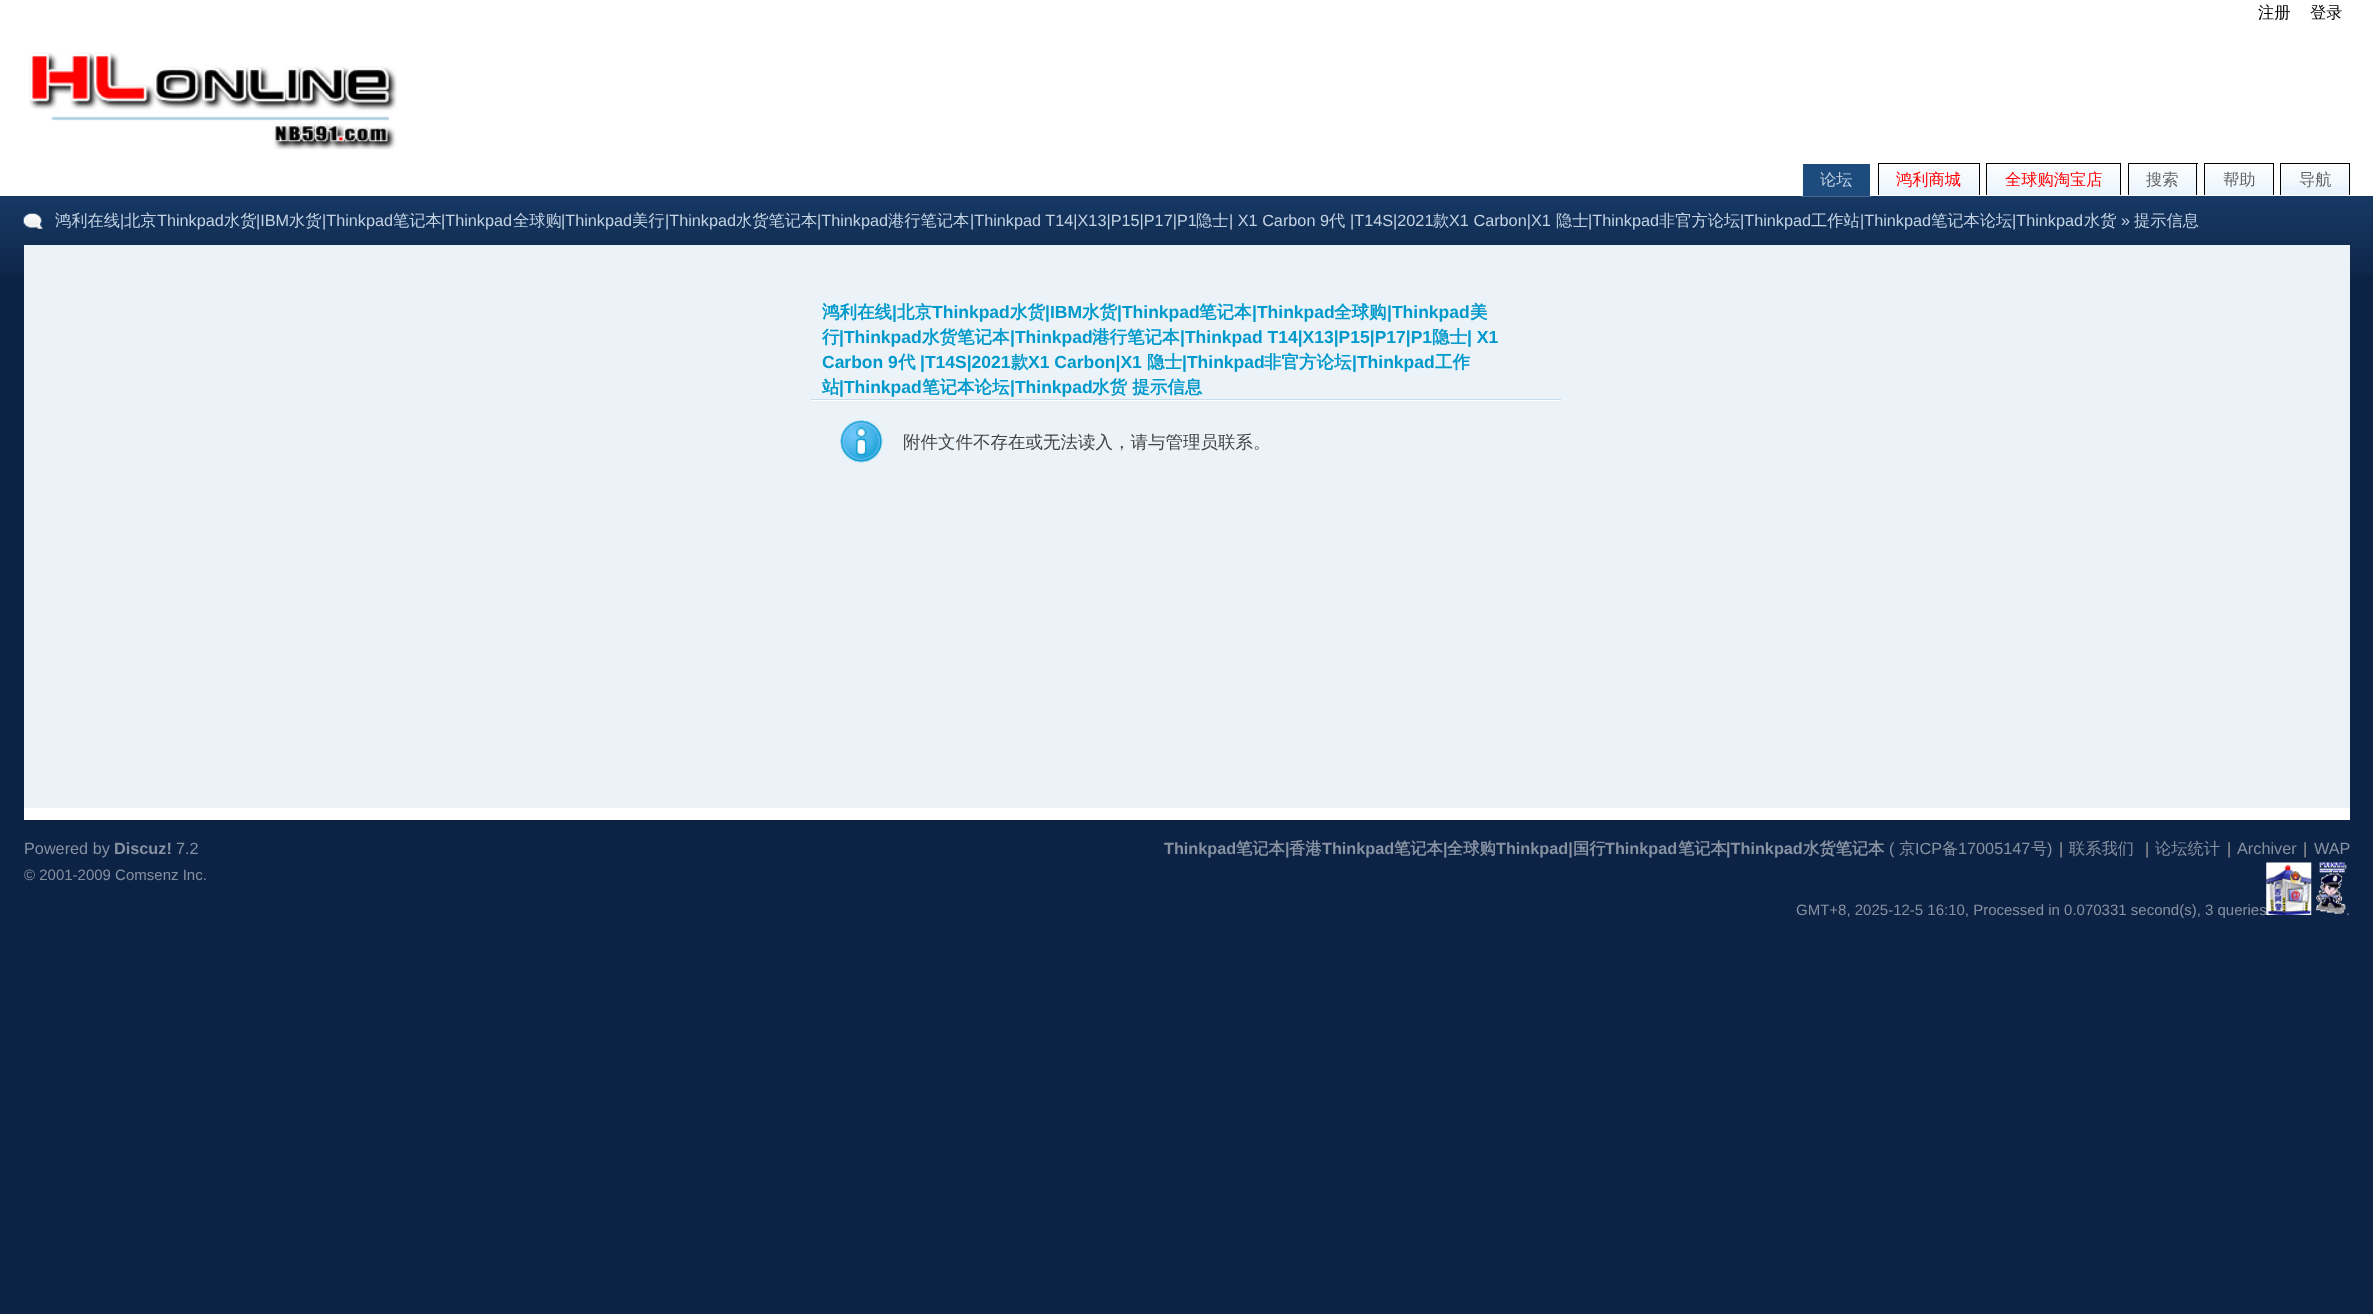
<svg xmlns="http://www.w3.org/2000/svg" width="2373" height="1314">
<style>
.a{font:500 16.25px WenQuanYi Zen Hei;fill:#000}
.b{font:500 16.25px WenQuanYi Zen Hei;fill:#c3d3e4}
.c{font:500 16.25px WenQuanYi Zen Hei;fill:#f00}
.d{font:500 16.25px WenQuanYi Zen Hei;fill:#666}
.e{font:16.25px Liberation Sans;fill:#c3d3e4}
.f{font:bold 17.5px WenQuanYi Zen Hei;fill:#09c}
.g{font:bold 17.5px Liberation Sans;fill:#09c}
.h{font:500 17.5px WenQuanYi Zen Hei;fill:#444}
.i{font:16.25px Liberation Sans;fill:#8691a2}
.j{font:bold 16.25px Liberation Sans;fill:#8691a2}
.k{font:15px Liberation Sans;fill:#8691a2}
.l{font:bold 16.25px WenQuanYi Zen Hei;fill:#8691a2}
.m{font:500 16.25px WenQuanYi Zen Hei;fill:#8691a2}
.n{font:16.25px Liberation Sans;fill:#999}
</style>
<rect width="100%" height="100%" fill="#0d2345"/>
<image href="1.png" x="0" y="196" width="2373" height="80"/>
<path fill="#fff" d="M0 0h2373v196H0z"/>
<image href="2.png" x="29" y="52" width="368" height="98"/>
<image href="3.png" x="1801" y="163" width="71" height="34"/>
<path fill="#1e4b7e" d="M1803 164h67v32H1803z"/>
<path fill="#fff" d="M1870 163h1v33H1870z"/>
<path fill="#fff" d="M1801 163h1v33H1801z"/>
<image href="4.png" x="1877" y="163" width="102" height="32"/>
<path fill="#000" d="M1878 163h102v1H1878z"/>
<path fill="#000" d="M1979 163h1v32H1979z"/>
<path fill="#000" d="M1878 163h1v32H1878z"/>
<image href="5.png" x="1987" y="163" width="135" height="32"/>
<path fill="#000" d="M1986 163h135v1H1986z"/>
<path fill="#000" d="M2120 163h1v32H2120z"/>
<path fill="#000" d="M1986 163h1v32H1986z"/>
<path fill="#ebf4fd" d="M2197 164h1v31H2197z"/>
<image href="6.png" x="2127" y="163" width="71" height="32"/>
<path fill="#000" d="M2128 163h70v1H2128z"/>
<path fill="#000" d="M2196 163h1v32H2196z"/>
<path fill="#000" d="M2128 163h1v32H2128z"/>
<image href="7.png" x="2203" y="163" width="70" height="32"/>
<path fill="#000" d="M2204 163h70v1H2204z"/>
<path fill="#000" d="M2273 163h1v32H2273z"/>
<path fill="#000" d="M2204 163h1v32H2204z"/>
<path fill="#ebf4fd" d="M2281 186h68v9H2281z"/>
<image href="8.png" x="2281" y="164" width="68" height="22"/>
<path fill="#000" d="M2280 163h70v1H2280z"/>
<path fill="#000" d="M2349 163h1v32H2349z"/>
<path fill="#000" d="M2280 163h1v32H2280z"/>
<image href="9.png" x="23" y="213" width="20" height="16"/>
<path fill="#fff" d="M24 808h2326v12H24z"/>
<path fill="#ebf2f8" d="M24 245h2326v563H24z"/>
<path fill="#c8dcec" d="M811 399h750v1H811z"/>
<path fill="#fff" d="M811 400h750v1H811z"/>
<image href="10.png" x="840" y="420" width="43" height="43"/>
<image href="12.png" x="2316" y="862" width="31" height="52"/>
<text class="a" x="2258" y="18">注册</text>
<text class="a" x="2310" y="18">登录</text>
<text class="b" x="1820" y="185">论坛</text>
<text class="c" x="1896" y="185">鸿利商城</text>
<text class="c" x="2005" y="185">全球购淘宝店</text>
<text class="d" x="2146" y="185">搜索</text>
<text class="d" x="2223" y="185">帮助</text>
<text class="d" x="2299" y="185">导航</text>
<text class="b" x="55" y="226">鸿利在线</text>
<text class="e" x="120" y="226">|</text>
<text class="b" x="124" y="226">北京</text>
<text class="e" x="157" y="226">Thinkpad</text>
<text class="b" x="224" y="226">水货</text>
<text class="e" x="256" y="226">|IBM</text>
<text class="b" x="289" y="226">水货</text>
<text class="e" x="322" y="226">|Thinkpad</text>
<text class="b" x="393" y="226">笔记本</text>
<text class="e" x="441" y="226">|Thinkpad</text>
<text class="b" x="513" y="226">全球购</text>
<text class="e" x="561" y="226">|Thinkpad</text>
<text class="b" x="632" y="226">美行</text>
<text class="e" x="665" y="226">|Thinkpad</text>
<text class="b" x="736" y="226">水货笔记本</text>
<text class="e" x="817" y="226">|Thinkpad</text>
<text class="b" x="888" y="226">港行笔记本</text>
<text class="e" x="970" y="226">|Thinkpad T14|X13|P15|P17|P1</text>
<text class="b" x="1196" y="226">隐士</text>
<text class="e" x="1229" y="226">| X1 Carbon 9</text>
<text class="b" x="1329" y="226">代</text>
<text class="e" x="1350" y="226">|T14S|2021</text>
<text class="b" x="1433" y="226">款</text>
<text class="e" x="1449" y="226">X1 Carbon|X1</text>
<text class="b" x="1556" y="226">隐士</text>
<text class="e" x="1588" y="226">|Thinkpad</text>
<text class="b" x="1659" y="226">非官方论坛</text>
<text class="e" x="1740" y="226">|Thinkpad</text>
<text class="b" x="1811" y="226">工作站</text>
<text class="e" x="1860" y="226">|Thinkpad</text>
<text class="b" x="1931" y="226">笔记本论坛</text>
<text class="e" x="2012" y="226">|Thinkpad</text>
<text class="b" x="2084" y="226">水货</text>
<text class="e" x="2121" y="226">»</text>
<text class="b" x="2134" y="226">提示信息</text>
<text class="f" x="822" y="318">鸿利在线</text>
<text class="g" x="892" y="318">|</text>
<text class="f" x="897" y="318">北京</text>
<text class="g" x="932" y="318">Thinkpad</text>
<text class="f" x="1010" y="318">水货</text>
<text class="g" x="1045" y="318">|IBM</text>
<text class="f" x="1082" y="318">水货</text>
<text class="g" x="1117" y="318">|Thinkpad</text>
<text class="f" x="1199" y="318">笔记本</text>
<text class="g" x="1252" y="318">|Thinkpad</text>
<text class="f" x="1334" y="318">全球购</text>
<text class="g" x="1387" y="318">|Thinkpad</text>
<text class="f" x="1470" y="318">美</text>
<text class="f" x="822" y="343">行</text>
<text class="g" x="839" y="343">|Thinkpad</text>
<text class="f" x="922" y="343">水货笔记本</text>
<text class="g" x="1010" y="343">|Thinkpad</text>
<text class="f" x="1092" y="343">港行笔记本</text>
<text class="g" x="1180" y="343">|Thinkpad T14|X13|P15|P17|P1</text>
<text class="f" x="1432" y="343">隐士</text>
<text class="g" x="1467" y="343">| X1</text>
<text class="g" x="822" y="368">Carbon 9</text>
<text class="f" x="898" y="368">代</text>
<text class="g" x="920" y="368">|T14S|2021</text>
<text class="f" x="1011" y="368">款</text>
<text class="g" x="1028" y="368">X1 Carbon|X1</text>
<text class="f" x="1147" y="368">隐士</text>
<text class="g" x="1182" y="368">|Thinkpad</text>
<text class="f" x="1264" y="368">非官方论坛</text>
<text class="g" x="1352" y="368">|Thinkpad</text>
<text class="f" x="1435" y="368">工作</text>
<text class="f" x="822" y="393">站</text>
<text class="g" x="839" y="393">|Thinkpad</text>
<text class="f" x="922" y="393">笔记本论坛</text>
<text class="g" x="1010" y="393">|Thinkpad</text>
<text class="f" x="1092" y="393">水货 提示信息</text>
<text class="h" x="903" y="448">附件文件不存在或无法读入，请与管理员联系。</text>
<text class="i" x="24" y="854">Powered by</text>
<text class="j" x="114" y="854">Discuz!</text>
<text class="i" x="176" y="854">7.2</text>
<text class="k" x="24" y="880">© 2001-2009 Comsenz Inc.</text>
<text class="j" x="1164" y="854">Thinkpad</text>
<text class="l" x="1236" y="854">笔记本</text>
<text class="j" x="1285" y="854">|</text>
<text class="l" x="1289" y="854">香港</text>
<text class="j" x="1322" y="854">Thinkpad</text>
<text class="l" x="1394" y="854">笔记本</text>
<text class="j" x="1443" y="854">|</text>
<text class="l" x="1447" y="854">全球购</text>
<text class="j" x="1496" y="854">Thinkpad|</text>
<text class="l" x="1573" y="854">国行</text>
<text class="j" x="1605" y="854">Thinkpad</text>
<text class="l" x="1678" y="854">笔记本</text>
<text class="j" x="1726" y="854">|Thinkpad</text>
<text class="l" x="1803" y="854">水货笔记本</text>
<text class="i" x="1889" y="854">(</text>
<text class="m" x="1899" y="854">京</text>
<text class="i" x="1915" y="854">ICP</text>
<text class="m" x="1942" y="854">备</text>
<text class="i" x="1958" y="854">17005147</text>
<text class="m" x="2031" y="854">号</text>
<text class="i" x="2047" y="854">)</text>
<text class="n" x="2059" y="854">|</text>
<text class="m" x="2069" y="854">联系我们</text>
<text class="n" x="2145" y="854">|</text>
<text class="m" x="2155" y="854">论坛统计</text>
<text class="n" x="2227" y="854">|</text>
<text class="i" x="2237" y="854">Archiver</text>
<text class="n" x="2303" y="854">|</text>
<text class="i" x="2314" y="854">WAP</text>
<text class="k" x="1796" y="915">GMT+8, 2025-12-5 16:10, Processed in 0.070331 second(s), 3 queries</text>
<image href="11.png" x="2266" y="862" width="46" height="53"/>
<text class="k" x="2346" y="915">.</text>
</svg>
